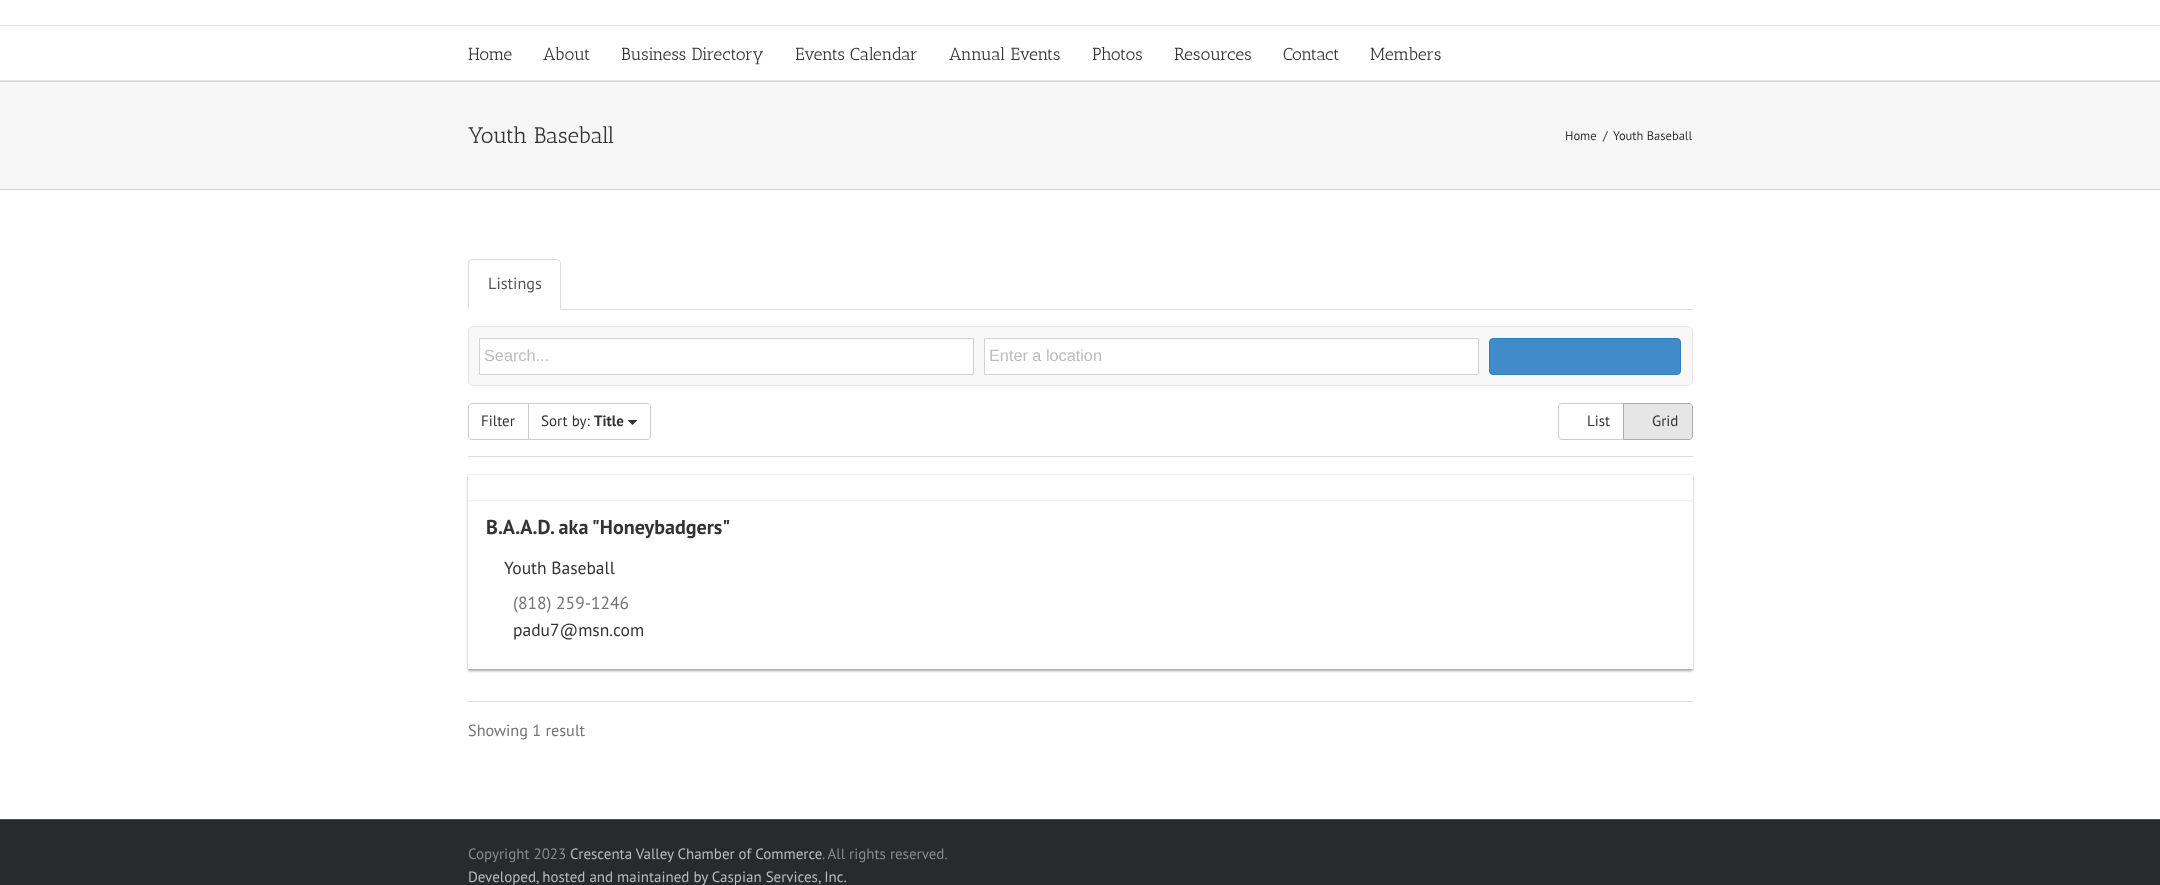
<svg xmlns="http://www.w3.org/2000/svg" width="2160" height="885">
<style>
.a{font:17.5px Antic Slab;fill:#333}
.b{font:22.5px Antic Slab;fill:#333}
.c{font:12.5px PT Sans;fill:#333}
.d{font:16.25px PT Sans;fill:#555}
.e{font:16.25px Liberation Sans;fill:#bbb}
.f{font:15px PT Sans;fill:#333}
.g{font:bold 15px PT Sans;fill:#333}
.h{font:bold 20.1px PT Sans;fill:#333}
.i{font:17.5px PT Sans;fill:#333}
.j{font:17.5px PT Sans;fill:#747474}
.k{font:16.25px PT Sans;fill:#747474}
.l{font:15px PT Sans;fill:#8c8989}
.m{font:15px PT Sans;fill:#bbb}
</style>
<defs>
<clipPath id="clip1"><path d="M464 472h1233v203h-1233zm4 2h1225v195h-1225z" clip-rule="evenodd"/></clipPath>
</defs>
<rect width="100%" height="100%" fill="#fff"/>
<path fill="#e5e5e5" d="M0 25h2160v1H0z"/>
<path fill="#e5e5e5" d="M0 80h2160v1H0z"/>
<path fill="#f6f6f6" d="M0 82h2160v107H0z"/>
<path fill="#d2d3d4" d="M0 81h2160v1H0z"/>
<path fill="#d2d3d4" d="M0 189h2160v1H0z"/>
<path fill="#ddd" d="M561 309h1132v1H561z"/>
<path fill="#ddd" d="M472 259c-1 0-2 1-3 1l1 1c0-1 1-1 2-1h84c1 0 2 0 3 1l1-1c-1 0-2-1-4-1z"/>
<path fill="#ddd" d="M561 310v-46c0-2-1-3-1-4l-1 1c1 1 1 2 1 3v45z"/>
<path fill="#ddd" d="M469 260c-1 1-1 3-1 4v46l1-2v-44l1-3z"/>
<rect fill="#f8f8f8" stroke="#e7e7e7" x="468.5" y="326.5" width="1224" height="59" rx="4.5"/>
<path fill="#fff" stroke="#d2d2d2" d="M479.5 338.5h494v36H479.5z"/>
<path fill="#fff" stroke="#d2d2d2" d="M984.5 338.5h494v36H984.5z"/>
<rect fill="#428bca" stroke="#357ebd" x="1489.5" y="338.5" width="191" height="36" rx="3.5"/>
<path fill="#ddd" d="M468 456h1225v1H468z"/>
<path fill="none" stroke="#ccc" d="M472 403.5h56.5v36h-56.5c-2 0-3.5-1.5-3.5-3.5v-29c0-2 1.5-3.5 3.5-3.5z"/>
<path fill="#fff" stroke="#ccc" d="M528.5 403.5h118.5c2 0 3.5 1.5 3.5 3.5v29c0 2-1.5 3.5-3.5 3.5h-118.5z"/>
<path fill="#333" d="M627.5 420h10l-5 5z"/>
<path fill="none" stroke="#ccc" d="M1562 403.5h61.5v36h-61.5c-2 0-3.5-1.5-3.5-3.5v-29c0-2 1.5-3.5 3.5-3.5z"/>
<path fill="#e6e6e6" stroke="#adadad" d="M1623.5 403.5h65.5c2 0 3.5 1.5 3.5 3.5v29c0 2-1.5 3.5-3.5 3.5h-65.5z"/>
<g clip-path="url(#clip1)">
<path fill="#55555580" filter="blur(1px)" d="M468 476h1225v195H468z"/>
</g>
<path fill="#efefef" d="M468 474h1225v1H468z"/>
<path fill="#efefef" d="M468 500h1225v1H468z"/>
<path fill="#ddd" d="M468 701h1225v1H468z"/>
<path fill="#282a2b" d="M0 820h2160v65H0z"/>
<path fill="#4b4c4d" d="M0 819h2160v1H0z"/>
<text class="a" x="468" y="60">Home</text>
<text class="a" x="543" y="60">About</text>
<text class="a" x="621" y="60">Business Directory</text>
<text class="a" x="795" y="60">Events Calendar</text>
<text class="a" x="949" y="60">Annual Events</text>
<text class="a" x="1092" y="60">Photos</text>
<text class="a" x="1174" y="60">Resources</text>
<text class="a" x="1283" y="60">Contact</text>
<text class="a" x="1370" y="60">Members</text>
<text class="b" x="468" y="143">Youth Baseball</text>
<text class="c" x="1565" y="140">Home</text>
<text class="c" x="1603" y="140">/</text>
<text class="c" x="1613" y="140">Youth Baseball</text>
<text class="d" x="488" y="289">Listings</text>
<text class="e" x="484" y="361">Search...</text>
<text class="e" x="989" y="361">Enter a location</text>
<text class="f" x="481" y="426">Filter</text>
<text class="f" x="541" y="426">Sort by:</text>
<text class="g" x="594" y="426">Title</text>
<text class="f" x="1587" y="426">List</text>
<text class="f" x="1652" y="426">Grid</text>
<text class="h" x="486" y="534">B.A.A.D. aka "Honeybadgers"</text>
<text class="i" x="504" y="574">Youth Baseball</text>
<text class="j" x="513" y="609">(818) 259-1246</text>
<text class="i" x="513" y="636">padu7@msn.com</text>
<text class="k" x="468" y="736">Showing 1 result</text>
<text class="l" x="468" y="859">Copyright 2023</text>
<text class="m" x="570" y="859">Crescenta Valley Chamber of Commerce</text>
<text class="l" x="822" y="859">. All rights reserved.</text>
<text class="m" x="468" y="882">Developed, hosted and maintained by Caspian Services, Inc.</text>
</svg>
